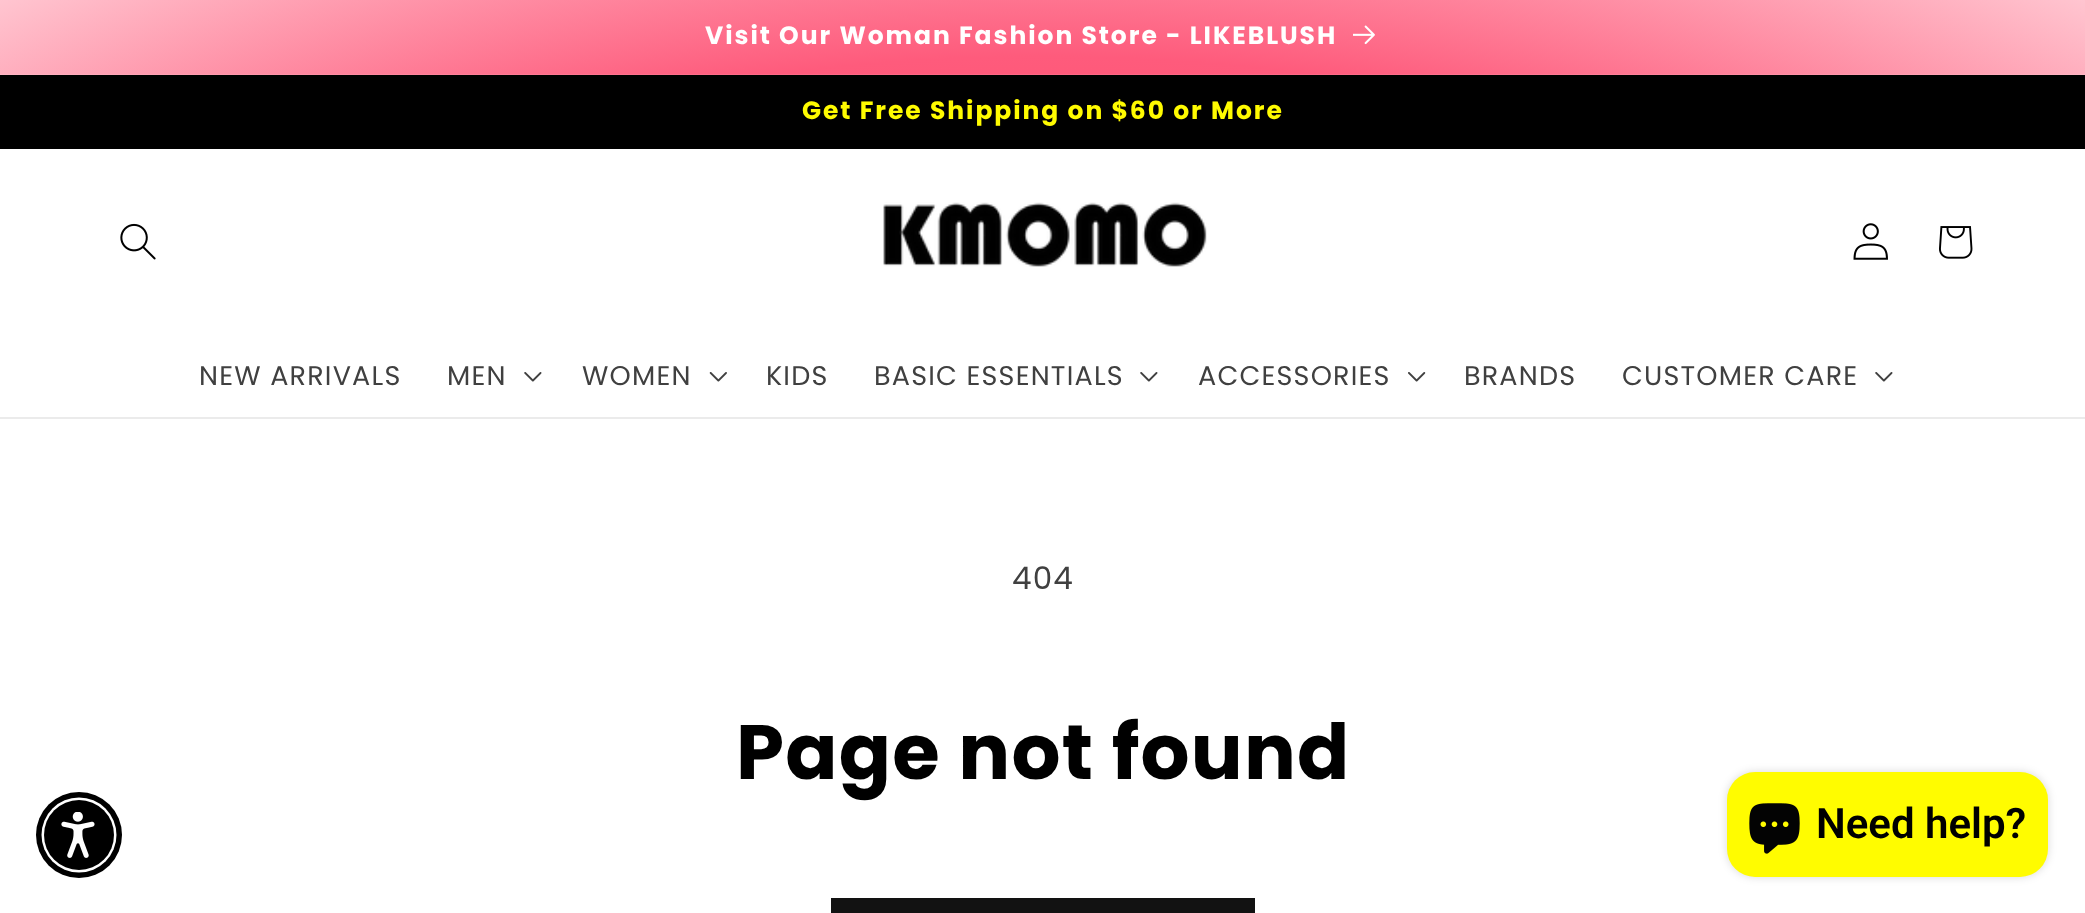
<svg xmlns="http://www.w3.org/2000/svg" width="2085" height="913">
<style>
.a{font:bold 25px Poppins;letter-spacing:1.95px;fill:#fff}
.b{font:bold 25px Poppins;letter-spacing:1.95px;fill:#fffb00}
.c{font:27px Poppins;letter-spacing:1.2px;fill:#404040}
.d{font:31px Poppins;letter-spacing:1.2px;fill:#404040}
.e{font:bold 77px Poppins;letter-spacing:1.2px;fill:#000}
.f{font:600 42px Roboto;fill:#000}
</style>
<defs>
<radialGradient id="g1" gradientUnits="userSpaceOnUse" cx="0" cy="0" r="1" gradientTransform="matrix(1475 0 0 646 1043 457)"><stop offset="0" stop-color="#ff3f55"/><stop offset="0.62" stop-color="#fe5b7c"/><stop offset="1" stop-color="#ffc5d0"/></radialGradient>
<radialGradient id="g2" gradientUnits="userSpaceOnUse" cx="0" cy="0" r="1" gradientTransform="matrix(1475 0 0 646 1043 457)"><stop offset="0" stop-color="#ff4e63"/><stop offset="0.62" stop-color="#fe6886"/><stop offset="1" stop-color="#ffcad4"/></radialGradient>
</defs>
<rect width="100%" height="100%" fill="#fff"/>
<path fill="url(#g1)" d="M0 0h2085v74H0z"/>
<path fill="url(#g2)" d="M0 74h2085v1H0z"/>
<image href="1.png" x="1353" y="25" width="22" height="20"/>
<path fill="#000" d="M0 75h2085v74H0z"/>
<path fill="#ebebeb" d="M0 417h2085v2H0z"/>
<image href="2.png" x="120" y="223" width="36" height="37"/>
<image href="3.png" x="883" y="202" width="324" height="65"/>
<image href="4.png" x="1853" y="223" width="35" height="37"/>
<image href="5.png" x="1939" y="226" width="34" height="33"/>
<image href="6.png" x="524" y="372" width="18" height="10"/>
<image href="7.png" x="709" y="372" width="18" height="10"/>
<image href="6.png" x="1140" y="372" width="18" height="10"/>
<image href="8.png" x="1408" y="372" width="18" height="10"/>
<image href="6.png" x="1875" y="372" width="18" height="10"/>
<path fill="#121212" d="M831 898h424v15H831z"/>
<circle fill="#000" cx="79" cy="835" r="43"/>
<circle fill="#fff" cx="79" cy="835" r="37.5"/>
<circle fill="#000" cx="79" cy="835" r="35"/>
<image href="9.png" x="61" y="812" width="34" height="46"/>
<rect fill="#00000026" filter="blur(4.5px)" x="1727" y="772" width="321" height="105" rx="28"/>
<rect fill="#fffc00" x="1727" y="772" width="321" height="105" rx="28"/>
<image href="10.png" x="1749" y="803" width="51" height="51"/>
<text class="a" x="705" y="44">Visit Our Woman Fashion Store - LIKEBLUSH</text>
<text class="b" x="802" y="119">Get Free Shipping on $60 or More</text>
<text class="c" x="199" y="385">NEW ARRIVALS</text>
<text class="c" x="447" y="385">MEN</text>
<text class="c" x="582" y="385">WOMEN</text>
<text class="c" x="766" y="385">KIDS</text>
<text class="c" x="874" y="385">BASIC ESSENTIALS</text>
<text class="c" x="1198" y="385">ACCESSORIES</text>
<text class="c" x="1464" y="385">BRANDS</text>
<text class="c" x="1622" y="385">CUSTOMER CARE</text>
<text class="d" x="1012" y="589">404</text>
<text class="e" x="736" y="779">Page not found</text>
<text class="f" x="1816" y="838">Need help?</text>
</svg>
